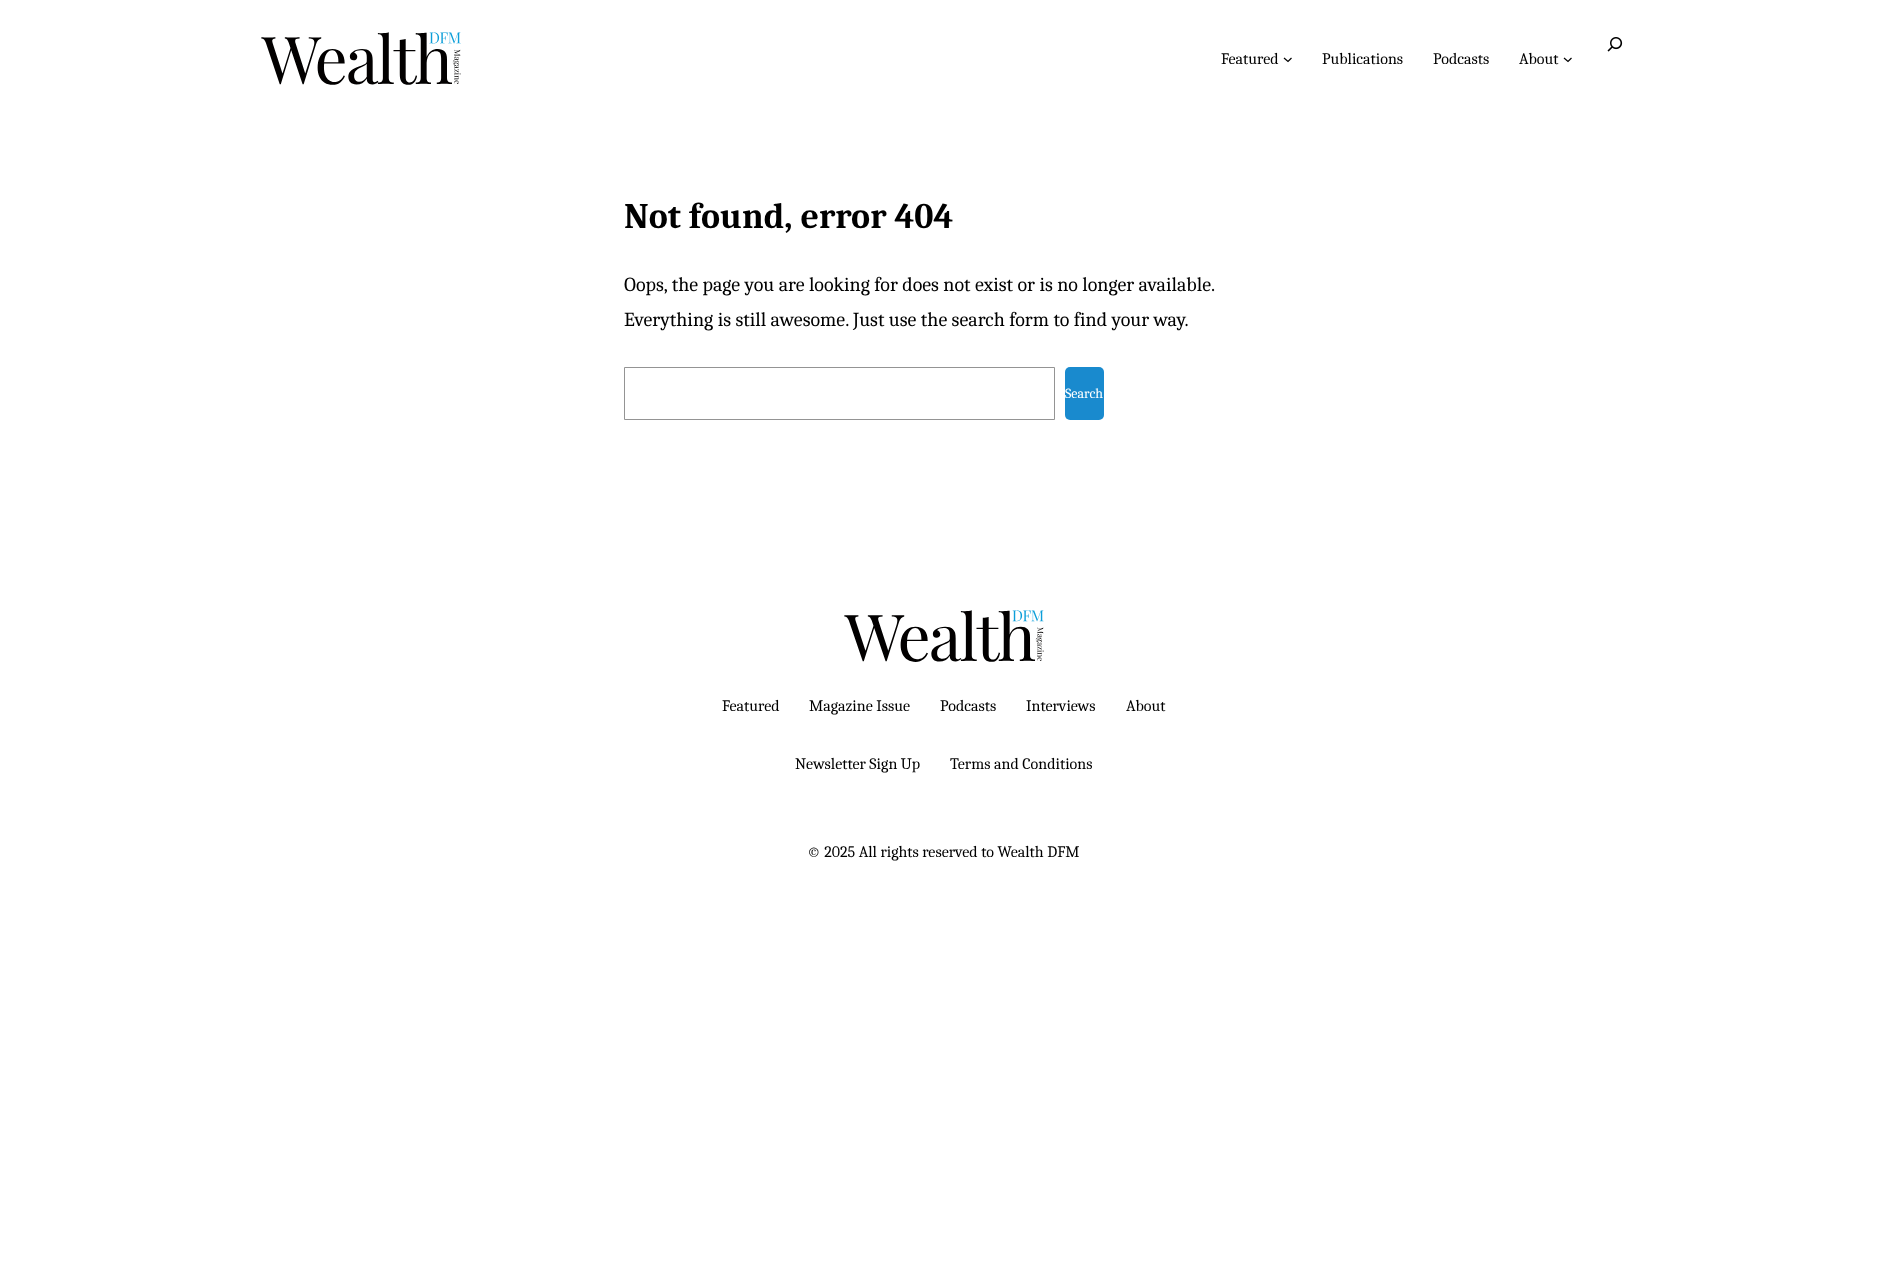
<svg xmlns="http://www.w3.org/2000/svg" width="1887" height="1281">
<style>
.a{font:16px Caladea;fill:#000}
.b{font:bold 36px Caladea;fill:#000}
.c{font:20px Caladea;fill:#000}
.d{font:14px Caladea;fill:#fff}
</style>
<rect width="100%" height="100%" fill="#fff"/>
<image href="1.png" x="261" y="32" width="200" height="53"/>
<image href="2.png" x="1607" y="37" width="16" height="15"/>
<path fill="none" stroke="#000" stroke-width="1.2" d="M1284 58l4 3.5l3.5-3.5"/>
<path fill="none" stroke="#000" stroke-width="1.2" d="M1564 58l4 3.5l3.5-3.5"/>
<path fill="none" stroke="#949494" d="M624.5 367.5h430v52H624.5z"/>
<rect fill="#198ace" x="1065" y="367" width="39" height="53" rx="5"/>
<image href="3.png" x="844" y="610" width="200" height="52"/>
<text class="a" x="1221" y="64">Featured</text>
<text class="a" x="1322" y="64">Publications</text>
<text class="a" x="1433" y="64">Podcasts</text>
<text class="a" x="1519" y="64">About</text>
<text class="b" x="624" y="228">Not found, error 404</text>
<text class="c" x="624" y="291">Oops, the page you are looking for does not exist or is no longer available.</text>
<text class="c" x="624" y="326">Everything is still awesome. Just use the search form to find your way.</text>
<text class="d" x="1065" y="398">Search</text>
<text class="a" x="722" y="711">Featured</text>
<text class="a" x="809" y="711">Magazine Issue</text>
<text class="a" x="940" y="711">Podcasts</text>
<text class="a" x="1026" y="711">Interviews</text>
<text class="a" x="1126" y="711">About</text>
<text class="a" x="795" y="769">Newsletter Sign Up</text>
<text class="a" x="950" y="769">Terms and Conditions</text>
<text class="a" x="807" y="857">© 2025 All rights reserved to Wealth DFM</text>
</svg>
